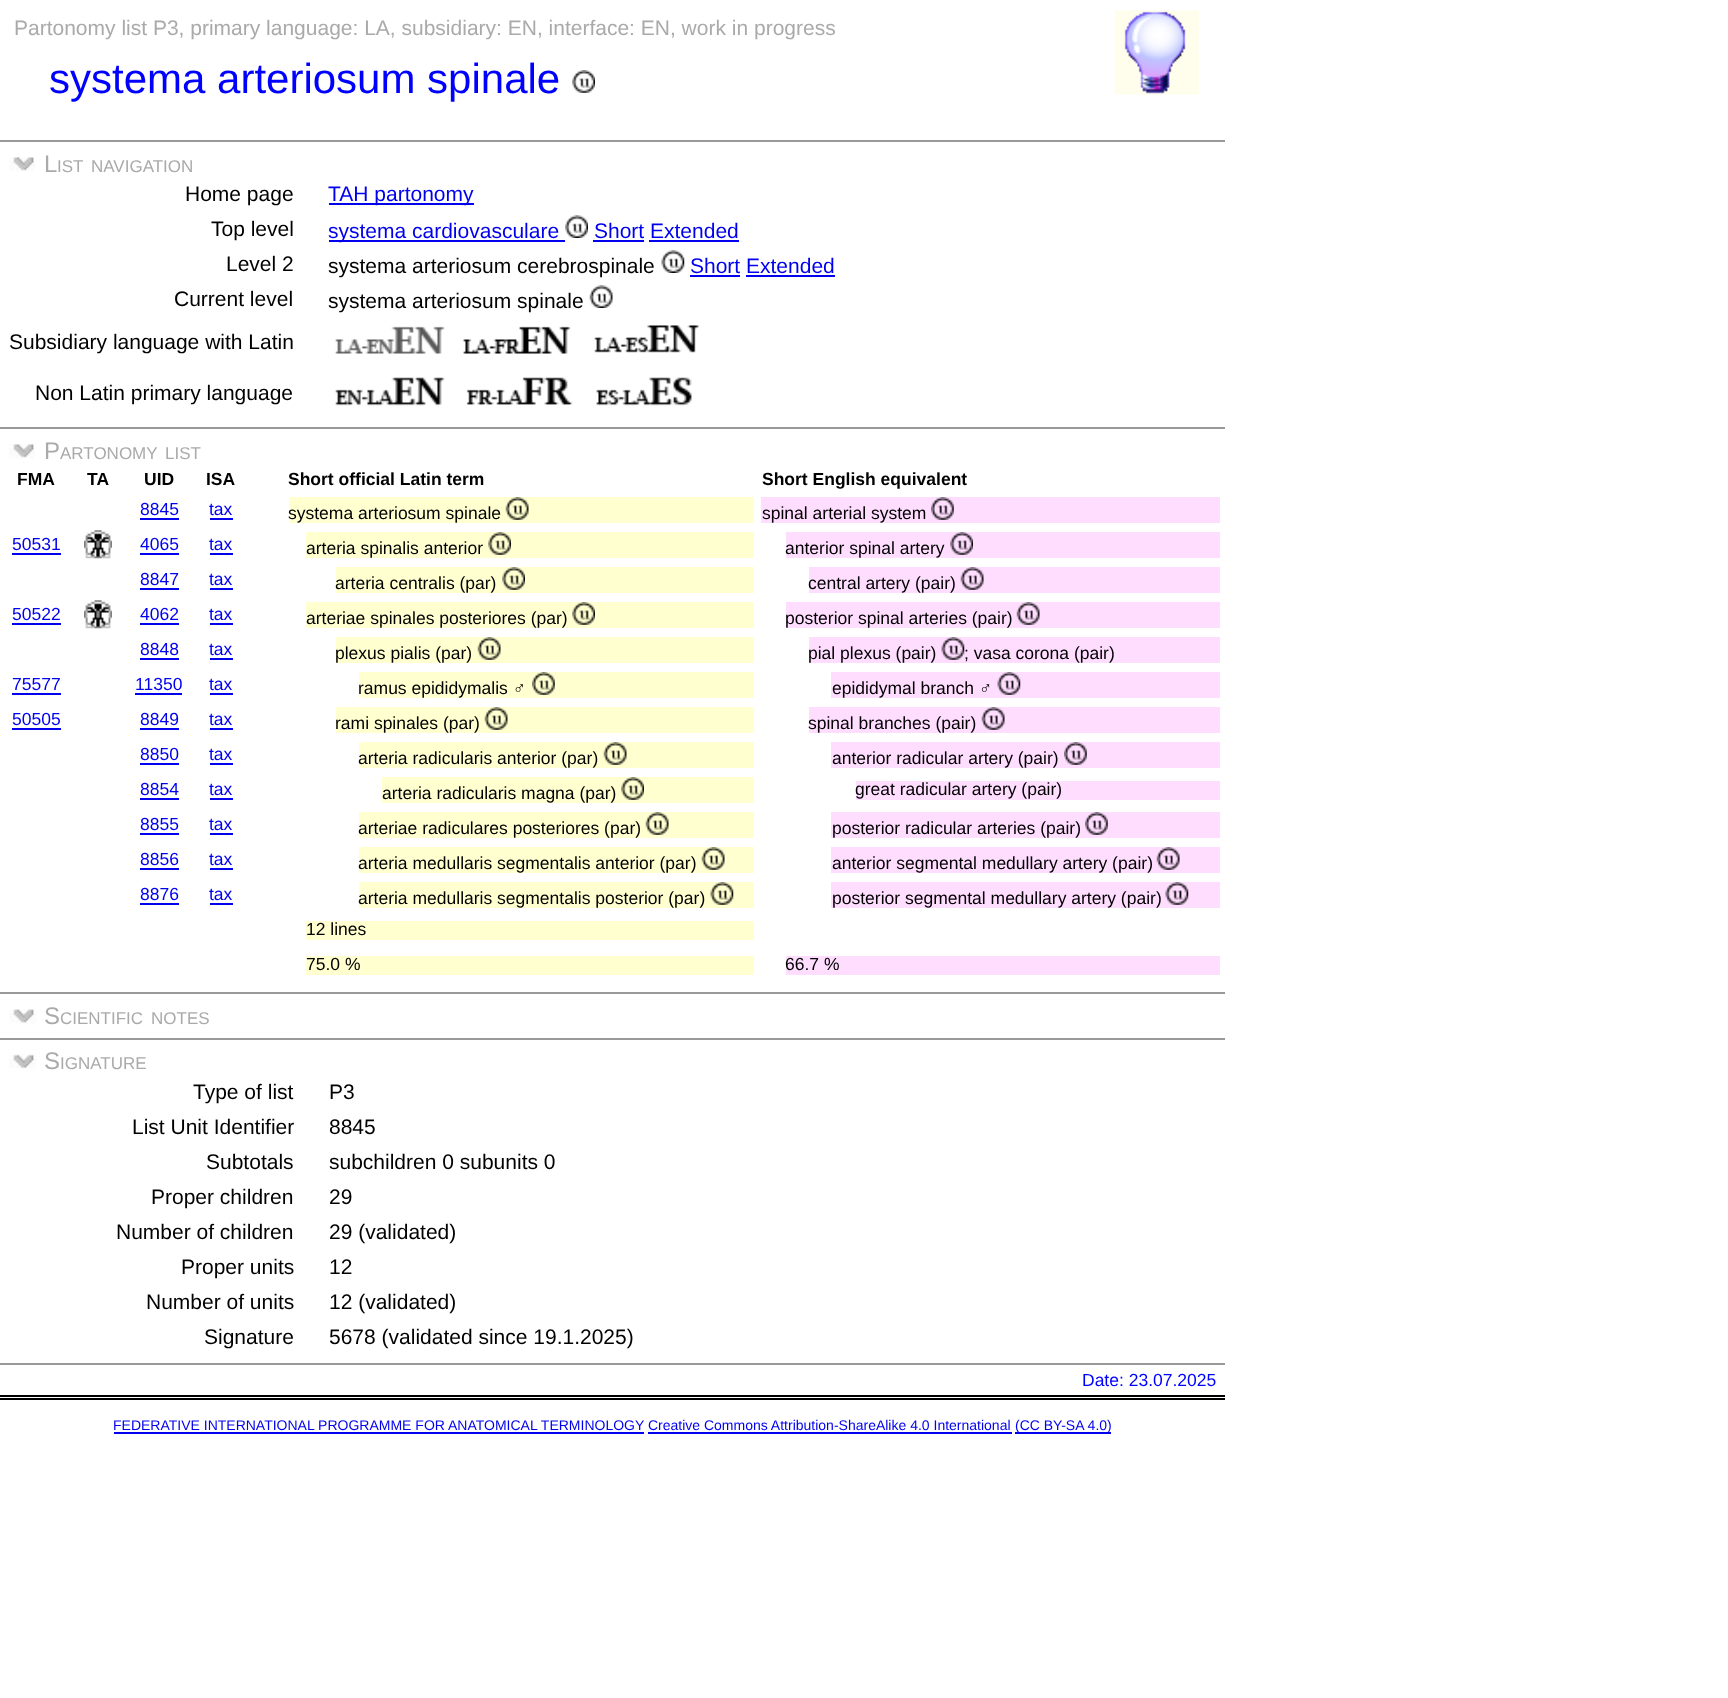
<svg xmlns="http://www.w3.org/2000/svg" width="1728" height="1698">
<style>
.a{font:21px Liberation Sans;fill:#aaa}
.b{font:42px Liberation Sans;fill:#00f}
.c{font:24px Liberation Sans;fill:#aaa}
.d{font:17px Liberation Sans;fill:#aaa}
.e{font:21px Liberation Sans;fill:#000}
.f{font:21px Liberation Sans;fill:#00e}
.g{font:bold 17.5px Liberation Sans;fill:#000}
.h{font:17.5px Liberation Sans;fill:#00e}
.i{font:17.5px Liberation Sans;fill:#000}
.j{font:17.5px Liberation Sans;fill:#00f}
.k{font:14px Liberation Sans;fill:#00e}
</style>
<rect width="100%" height="100%" fill="#fff"/>
<image href="1.png" x="572" y="70" width="23" height="23"/>
<image href="2.png" x="1114" y="10" width="85" height="85"/>
<path fill="#999" d="M0 140h1225v2H0z"/>
<image href="3.png" x="9" y="157" width="26" height="15"/>
<path fill="#00e" d="M329 203h145v2H329z"/>
<path fill="#00e" d="M329 240h236v2H329z"/>
<image href="4.png" x="565" y="215" width="23" height="23"/>
<path fill="#00e" d="M593 240h51v2H593z"/>
<path fill="#00e" d="M649 240h90v2H649z"/>
<image href="5.png" x="661" y="250" width="24" height="23"/>
<path fill="#00e" d="M690 275h50v2H690z"/>
<path fill="#00e" d="M746 275h89v2H746z"/>
<image href="6.png" x="589" y="285" width="24" height="23"/>
<image href="7.png" x="335" y="326" width="110" height="28"/>
<image href="8.png" x="463" y="326" width="108" height="28"/>
<image href="9.png" x="594" y="325" width="105" height="28"/>
<image href="10.png" x="335" y="377" width="110" height="29"/>
<image href="11.png" x="466" y="377" width="107" height="28"/>
<image href="12.png" x="596" y="377" width="96" height="29"/>
<path fill="#999" d="M0 427h1225v2H0z"/>
<image href="3.png" x="9" y="444" width="26" height="15"/>
<path fill="#00e" d="M140 518h39v2H140z"/>
<path fill="#00e" d="M210 518h23v2H210z"/>
<path fill="#ffffd0" d="M289 497h465v26H289z"/>
<image href="13.png" x="505" y="497" width="24" height="23"/>
<path fill="#fdf" d="M761 497h459v26H761z"/>
<image href="14.png" x="931" y="497" width="23" height="23"/>
<path fill="#00e" d="M12 553h49v2H12z"/>
<image href="15.png" x="84" y="530" width="28" height="29"/>
<path fill="#00e" d="M140 553h39v2H140z"/>
<path fill="#00e" d="M210 553h23v2H210z"/>
<path fill="#ffffd0" d="M306 532h448v26H306z"/>
<image href="16.png" x="488" y="532" width="23" height="23"/>
<path fill="#fdf" d="M786 532h434v26H786z"/>
<image href="17.png" x="950" y="532" width="23" height="23"/>
<path fill="#00e" d="M140 588h39v2H140z"/>
<path fill="#00e" d="M210 588h23v2H210z"/>
<path fill="#ffffd0" d="M336 567h418v26H336z"/>
<image href="16.png" x="502" y="567" width="23" height="23"/>
<path fill="#fdf" d="M809 567h411v26H809z"/>
<image href="18.png" x="960" y="567" width="24" height="23"/>
<path fill="#00e" d="M12 623h49v2H12z"/>
<image href="15.png" x="84" y="600" width="28" height="29"/>
<path fill="#00e" d="M140 623h39v2H140z"/>
<path fill="#00e" d="M210 623h23v2H210z"/>
<path fill="#ffffd0" d="M306 602h448v26H306z"/>
<image href="16.png" x="572" y="602" width="23" height="23"/>
<path fill="#fdf" d="M786 602h434v26H786z"/>
<image href="18.png" x="1016" y="602" width="24" height="23"/>
<path fill="#00e" d="M140 658h39v2H140z"/>
<path fill="#00e" d="M210 658h23v2H210z"/>
<path fill="#ffffd0" d="M336 637h418v26H336z"/>
<image href="13.png" x="477" y="637" width="24" height="23"/>
<path fill="#fdf" d="M809 637h411v26H809z"/>
<image href="19.png" x="941" y="637" width="24" height="23"/>
<path fill="#00e" d="M12 693h49v2H12z"/>
<path fill="#00e" d="M135 693h47v2H135z"/>
<path fill="#00e" d="M210 693h23v2H210z"/>
<path fill="#ffffd0" d="M359 672h395v26H359z"/>
<image href="20.png" x="532" y="672" width="23" height="23"/>
<path fill="#fdf" d="M831 672h389v26H831z"/>
<image href="21.png" x="997" y="672" width="24" height="23"/>
<path fill="#00e" d="M12 728h49v2H12z"/>
<path fill="#00e" d="M140 728h39v2H140z"/>
<path fill="#00e" d="M210 728h23v2H210z"/>
<path fill="#ffffd0" d="M336 707h418v26H336z"/>
<image href="13.png" x="484" y="707" width="24" height="23"/>
<path fill="#fdf" d="M809 707h411v26H809z"/>
<image href="18.png" x="981" y="707" width="24" height="23"/>
<path fill="#00e" d="M140 763h39v2H140z"/>
<path fill="#00e" d="M210 763h23v2H210z"/>
<path fill="#ffffd0" d="M359 742h395v26H359z"/>
<image href="13.png" x="603" y="742" width="24" height="23"/>
<path fill="#fdf" d="M831 742h389v26H831z"/>
<image href="14.png" x="1064" y="742" width="23" height="23"/>
<path fill="#00e" d="M140 798h39v2H140z"/>
<path fill="#00e" d="M210 798h23v2H210z"/>
<path fill="#ffffd0" d="M382 777h372v26H382z"/>
<image href="16.png" x="621" y="777" width="23" height="23"/>
<path fill="#fdf" d="M856 781h364v19H856z"/>
<path fill="#00e" d="M140 833h39v2H140z"/>
<path fill="#00e" d="M210 833h23v2H210z"/>
<path fill="#ffffd0" d="M359 812h395v26H359z"/>
<image href="13.png" x="645" y="812" width="24" height="23"/>
<path fill="#fdf" d="M831 812h389v26H831z"/>
<image href="14.png" x="1085" y="812" width="23" height="23"/>
<path fill="#00e" d="M140 868h39v2H140z"/>
<path fill="#00e" d="M210 868h23v2H210z"/>
<path fill="#ffffd0" d="M359 847h395v26H359z"/>
<image href="22.png" x="701" y="847" width="24" height="23"/>
<path fill="#fdf" d="M831 847h389v26H831z"/>
<image href="18.png" x="1156" y="847" width="24" height="23"/>
<path fill="#00e" d="M140 903h39v2H140z"/>
<path fill="#00e" d="M210 903h23v2H210z"/>
<path fill="#ffffd0" d="M359 882h395v26H359z"/>
<image href="23.png" x="710" y="882" width="24" height="23"/>
<path fill="#fdf" d="M831 882h389v26H831z"/>
<image href="24.png" x="1165" y="882" width="24" height="23"/>
<path fill="#ffffd0" d="M306 921h448v19H306z"/>
<path fill="#ffffd0" d="M306 956h448v19H306z"/>
<path fill="#fdf" d="M786 956h434v19H786z"/>
<path fill="#999" d="M0 992h1225v2H0z"/>
<image href="25.png" x="9" y="1009" width="28" height="15"/>
<path fill="#999" d="M0 1038h1225v2H0z"/>
<image href="26.png" x="9" y="1054" width="28" height="15"/>
<path fill="#999" d="M0 1363h1225v2H0z"/>
<path fill="#000" d="M0 1395h1225v2H0z"/>
<path fill="#000" d="M0 1398h1225v2H0z"/>
<path fill="#00e" d="M114 1432h530v2H114z"/>
<path fill="#00e" d="M1015 1432h96v2H1015z"/>
<path fill="#00e" d="M648 1432h364v2H648z"/>
<text class="a" x="14" y="35">Partonomy list P3, primary language: LA, subsidiary: EN, interface: EN, work in progress</text>
<text class="b" x="49" y="93">systema arteriosum spinale</text>
<text class="c" x="44" y="172">L</text>
<text class="d" x="57" y="172">IST</text>
<text class="d" x="91" y="172">NAVIGATION</text>
<text class="e" x="185" y="201">Home page</text>
<text class="f" x="328" y="201">TAH partonomy</text>
<text class="e" x="211" y="236">Top level</text>
<text class="f" x="328" y="238">systema cardiovasculare</text>
<text class="f" x="594" y="238">Short Extended</text>
<text class="e" x="226" y="271">Level 2</text>
<text class="e" x="328" y="273">systema arteriosum cerebrospinale</text>
<text class="f" x="690" y="273">Short Extended</text>
<text class="e" x="174" y="306">Current level</text>
<text class="e" x="328" y="308">systema arteriosum spinale</text>
<text class="e" x="9" y="349">Subsidiary language with Latin</text>
<text class="e" x="35" y="400">Non Latin primary language</text>
<text class="c" x="44" y="459">P</text>
<text class="d" x="60" y="459">ARTONOMY</text>
<text class="d" x="165" y="459">LIST</text>
<text class="g" x="17" y="485">FMA</text>
<text class="g" x="87" y="485">TA</text>
<text class="g" x="144" y="485">UID</text>
<text class="g" x="206" y="485">ISA</text>
<text class="g" x="288" y="485">Short official Latin term</text>
<text class="g" x="762" y="485">Short English equivalent</text>
<text class="h" x="140" y="515">8845</text>
<text class="h" x="209" y="515">tax</text>
<text class="i" x="288" y="519">systema arteriosum spinale</text>
<text class="i" x="762" y="519">spinal arterial system</text>
<text class="h" x="12" y="550">50531</text>
<text class="h" x="140" y="550">4065</text>
<text class="h" x="209" y="550">tax</text>
<text class="i" x="306" y="554">arteria spinalis anterior</text>
<text class="i" x="785" y="554">anterior spinal artery</text>
<text class="h" x="140" y="585">8847</text>
<text class="h" x="209" y="585">tax</text>
<text class="i" x="335" y="589">arteria centralis (par)</text>
<text class="i" x="808" y="589">central artery (pair)</text>
<text class="h" x="12" y="620">50522</text>
<text class="h" x="140" y="620">4062</text>
<text class="h" x="209" y="620">tax</text>
<text class="i" x="306" y="624">arteriae spinales posteriores (par)</text>
<text class="i" x="785" y="624">posterior spinal arteries (pair)</text>
<text class="h" x="140" y="655">8848</text>
<text class="h" x="209" y="655">tax</text>
<text class="i" x="335" y="659">plexus pialis (par)</text>
<text class="i" x="808" y="659">pial plexus (pair)</text>
<text class="i" x="964" y="659">; vasa corona (pair)</text>
<text class="h" x="12" y="690">75577</text>
<text class="h" x="135" y="690">11350</text>
<text class="h" x="209" y="690">tax</text>
<text class="i" x="358" y="694">ramus epididymalis ♂</text>
<text class="i" x="832" y="694">epididymal branch ♂</text>
<text class="h" x="12" y="725">50505</text>
<text class="h" x="140" y="725">8849</text>
<text class="h" x="209" y="725">tax</text>
<text class="i" x="335" y="729">rami spinales (par)</text>
<text class="i" x="808" y="729">spinal branches (pair)</text>
<text class="h" x="140" y="760">8850</text>
<text class="h" x="209" y="760">tax</text>
<text class="i" x="358" y="764">arteria radicularis anterior (par)</text>
<text class="i" x="832" y="764">anterior radicular artery (pair)</text>
<text class="h" x="140" y="795">8854</text>
<text class="h" x="209" y="795">tax</text>
<text class="i" x="382" y="799">arteria radicularis magna (par)</text>
<text class="i" x="855" y="795">great radicular artery (pair)</text>
<text class="h" x="140" y="830">8855</text>
<text class="h" x="209" y="830">tax</text>
<text class="i" x="358" y="834">arteriae radiculares posteriores (par)</text>
<text class="i" x="832" y="834">posterior radicular arteries (pair)</text>
<text class="h" x="140" y="865">8856</text>
<text class="h" x="209" y="865">tax</text>
<text class="i" x="358" y="869">arteria medullaris segmentalis anterior (par)</text>
<text class="i" x="832" y="869">anterior segmental medullary artery (pair)</text>
<text class="h" x="140" y="900">8876</text>
<text class="h" x="209" y="900">tax</text>
<text class="i" x="358" y="904">arteria medullaris segmentalis posterior (par)</text>
<text class="i" x="832" y="904">posterior segmental medullary artery (pair)</text>
<text class="i" x="306" y="935">12 lines</text>
<text class="i" x="306" y="970">75.0 %</text>
<text class="i" x="785" y="970">66.7 %</text>
<text class="c" x="44" y="1024">S</text>
<text class="d" x="60" y="1024">CIENTIFIC</text>
<text class="d" x="151" y="1024">NOTES</text>
<text class="c" x="44" y="1069">S</text>
<text class="d" x="60" y="1069">IGNATURE</text>
<text class="e" x="193" y="1099">Type of list</text>
<text class="e" x="329" y="1099">P3</text>
<text class="e" x="132" y="1134">List Unit Identifier</text>
<text class="e" x="329" y="1134">8845</text>
<text class="e" x="206" y="1169">Subtotals</text>
<text class="e" x="329" y="1169">subchildren 0 subunits 0</text>
<text class="e" x="151" y="1204">Proper children</text>
<text class="e" x="329" y="1204">29</text>
<text class="e" x="116" y="1239">Number of children</text>
<text class="e" x="329" y="1239">29 (validated)</text>
<text class="e" x="181" y="1274">Proper units</text>
<text class="e" x="329" y="1274">12</text>
<text class="e" x="146" y="1309">Number of units</text>
<text class="e" x="329" y="1309">12 (validated)</text>
<text class="e" x="204" y="1344">Signature</text>
<text class="e" x="329" y="1344">5678 (validated since 19.1.2025)</text>
<text class="j" x="1082" y="1386">Date: 23.07.2025</text>
<text class="k" x="113" y="1430">FEDERATIVE INTERNATIONAL PROGRAMME FOR ANATOMICAL TERMINOLOGY Creative Commons Attribution-ShareAlike 4.0 International</text>
<text class="k" x="1015" y="1430">(CC BY-SA 4.0)</text>
</svg>
